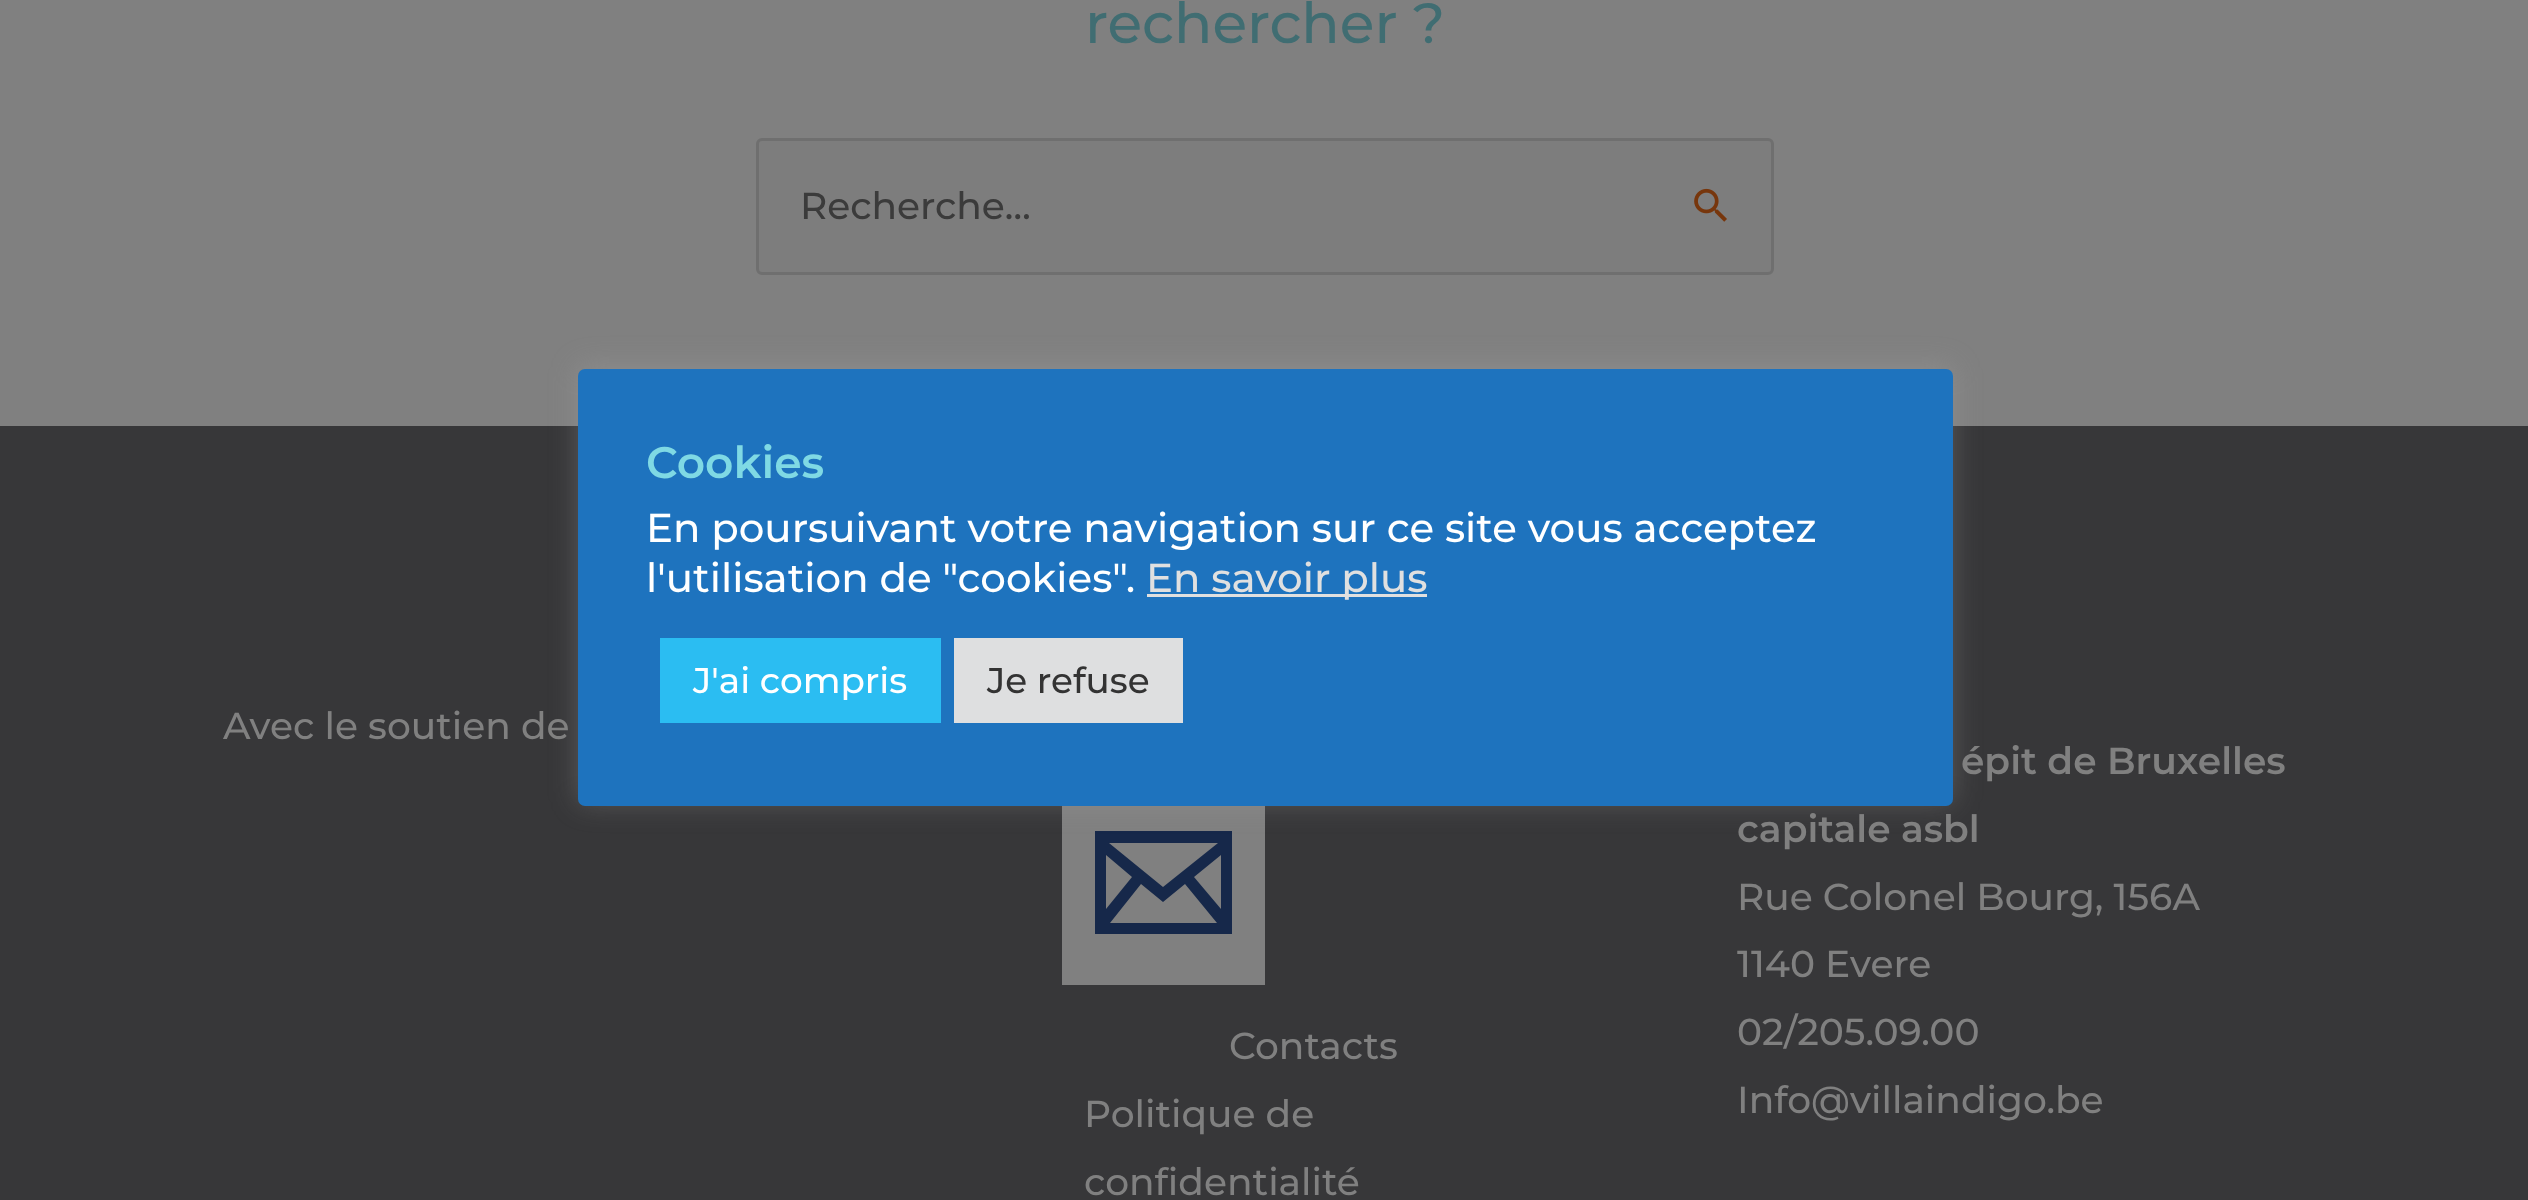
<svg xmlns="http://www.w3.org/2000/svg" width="2528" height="1200">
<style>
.a{font:500 56.5px Montserrat;fill:#406d72}
.b{font:500 37.6px Montserrat;fill:#3b3b3b}
.c{font:500 37.6px Montserrat;fill:#808080}
.d{font:600 37.6px Montserrat;fill:#808080}
.e{font:600 44px Montserrat;fill:#7fd9e4}
.f{font:500 40.3px Montserrat;fill:#fff}
.g{font:500 40.3px Montserrat;fill:#e0e0e0}
.h{font:500 35.75px Montserrat;fill:#fff}
.i{font:500 35.75px Montserrat;fill:#333}
</style>
<defs>
<clipPath id="clip1"><path d="M1095 814h137v138H1095z"/></clipPath>
</defs>
<rect width="100%" height="100%" fill="#808080"/>
<rect fill="#7d7d7d" stroke="#6f6f6f" stroke-width="3" x="757.5" y="139.5" width="1015" height="134" rx="4.5"/>
<image href="1.png" x="1694" y="188" width="33" height="34"/>
<path fill="#373739" d="M0 426h2528v774H0z"/>
<path fill="#808080" d="M1062 806h203v179H1062z"/>
<g clip-path="url(#clip1)">
<path fill="#16284a" d="M1094 831v103h138v-103zm38 46l-26 32v-54zm-23-34h109l-55 44zm32 41l22 18l22-18l32 39h-107zm53-7l27-22v54z"/>
</g>
<rect fill="#acabab4d" filter="blur(14px)" x="578" y="366" width="1375" height="437" rx="7"/>
<rect fill="#1e73be" x="578" y="369" width="1375" height="437" rx="7"/>
<path fill="#e0e0e0" d="M1147 594h280v3H1147z"/>
<path fill="#2bbdf2" d="M660 638h281v85H660z"/>
<path fill="#dedfe0" d="M954 638h229v85H954z"/>
<text class="a" x="1085" y="43">rechercher ?</text>
<text class="b" x="800" y="219">Recherche…</text>
<text class="c" x="223" y="739">Avec le soutien de</text>
<text class="c" x="1229" y="1059">Contacts</text>
<text class="c" x="1084" y="1127">Politique de</text>
<text class="c" x="1084" y="1195">confidentialité</text>
<text class="d" x="1961" y="774">épit de Bruxelles</text>
<text class="d" x="1737" y="842">capitale asbl</text>
<text class="c" x="1737" y="910">Rue Colonel Bourg, 156A</text>
<text class="c" x="1737" y="977">1140 Evere</text>
<text class="c" x="1737" y="1045">02/205.09.00</text>
<text class="c" x="1737" y="1113">Info@villaindigo.be</text>
<text class="e" x="646" y="478">Cookies</text>
<text class="f" x="646" y="542">En poursuivant votre navigation sur ce site vous acceptez</text>
<text class="f" x="646" y="592">l'utilisation de "cookies".</text>
<text class="g" x="1146" y="592">En savoir plus</text>
<text class="h" x="693" y="693">J'ai compris</text>
<text class="i" x="987" y="693">Je refuse</text>
</svg>
